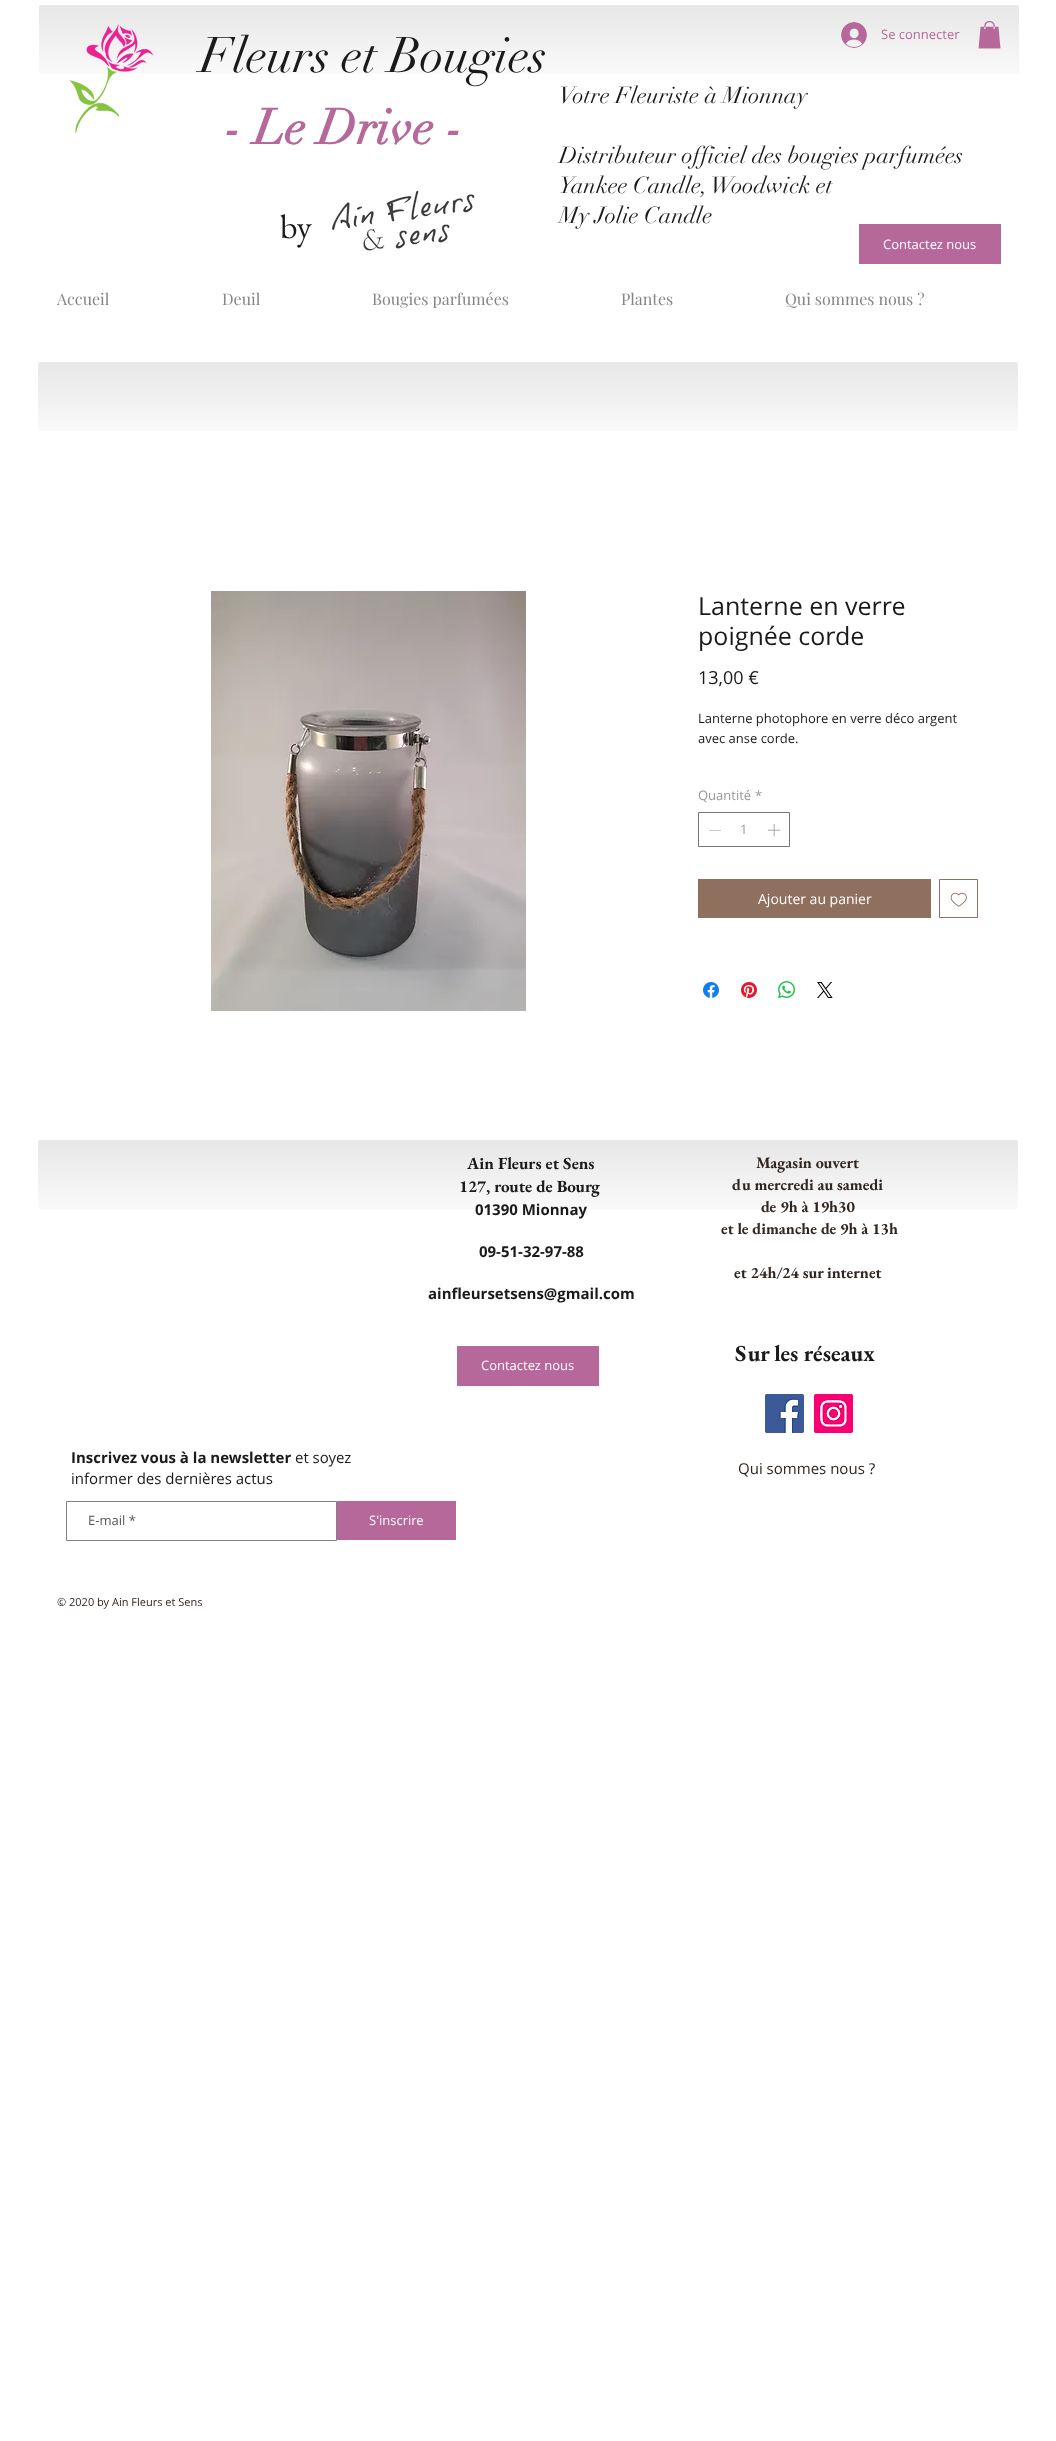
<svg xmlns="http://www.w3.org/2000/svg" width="1056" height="2441">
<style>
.a{font:49px didot;fill:#1a1a1a}
.b{font:13px Open Sans;fill:#b6689a}
.c{font:bold 49px didot;fill:#b6689a}
.d{font:23px didot;fill:#1a1a1a}
.e{font:34px EB Garamond;fill:#1a1a1a}
.f{font:13px Open Sans;fill:#fff}
.g{font:16px Playfair Display;fill:#858585}
.h{font:25px Open Sans;fill:#1a1a1a}
.i{font:18px Open Sans;fill:#1a1a1a}
.j{font:13px Open Sans;fill:#1a1a1a}
.k{font:13px Open Sans;fill:#999797}
.l{font:14px Open Sans;fill:#fff}
.m{font:bold 17px EB Garamond;fill:#1a1a1a}
.n{font:bold 15px Open Sans;fill:#1a1a1a}
.o{font:bold 16px EB Garamond;fill:#30251f}
.p{font:bold 23px EB Garamond;fill:#1a1a1a}
.q{font:15px Open Sans;fill:#1a1a1a}
.r{font:13px Open Sans;fill:#565656}
.s{font:15px Open Sans;fill:#30251f}
.t{font:11px Open Sans;fill:#30251f}
</style>
<rect width="100%" height="100%" fill="#fff"/>
<image href="1.png" x="39" y="5" width="980" height="69"/>
<image href="2.png" x="69" y="24" width="85" height="110"/>
<image href="3.png" x="841" y="22" width="26" height="26"/>
<image href="4.png" x="978" y="21" width="23" height="28"/>
<image href="5.png" x="331" y="190" width="144" height="61"/>
<path fill="#b6689a" d="M859 224h142v40H859z"/>
<image href="1.png" x="38" y="362" width="980" height="69"/>
<image href="6.png" x="211" y="591" width="315" height="420"/>
<path fill="none" stroke="#767676" d="M698.5 812.5h91v34H698.5z"/>
<path fill="#999797" fill-rule="evenodd" d="M721 830v.5h-12v-.5z"/>
<image href="7.png" x="768" y="824" width="13" height="13"/>
<path fill="#8f705e" d="M698 879h233v39H698z"/>
<path fill="none" stroke="#8f705e" d="M939.5 879.5h38v38H939.5z"/>
<image href="8.png" x="950" y="892" width="17" height="15"/>
<image href="9.png" x="703" y="982" width="16" height="16"/>
<image href="10.png" x="741" y="982" width="16" height="16"/>
<image href="11.png" x="778" y="981" width="17" height="17"/>
<image href="12.png" x="817" y="982" width="16" height="16"/>
<image href="1.png" x="38" y="1140" width="980" height="69"/>
<path fill="#b6689a" d="M457 1346h142v40H457z"/>
<image href="13.png" x="765" y="1394" width="39" height="39"/>
<image href="14.png" x="814" y="1394" width="39" height="39"/>
<path fill="none" stroke="#818181" d="M66.5 1501.5h270v39H66.5z"/>
<path fill="#b6689a" d="M337 1501h119v39H337z"/>
<text class="a" x="200" y="72">Fleurs et Bougies</text>
<text class="b" x="881" y="39">Se connecter</text>
<text class="c" x="224" y="144">- Le Drive -</text>
<text class="d" x="559" y="103">Votre Fleuriste à Mionnay</text>
<text class="d" x="559" y="163">Distributeur officiel des bougies parfumées</text>
<text class="d" x="559" y="193">Yankee Candle, Woodwick et</text>
<text class="d" x="559" y="223">My Jolie Candle</text>
<text class="e" x="280" y="238">by</text>
<text class="f" x="883" y="249">Contactez nous</text>
<text class="g" x="57" y="305">Accueil</text>
<text class="g" x="222" y="305">Deuil</text>
<text class="g" x="372" y="305">Bougies parfumées</text>
<text class="g" x="621" y="305">Plantes</text>
<text class="g" x="785" y="305">Qui sommes nous ?</text>
<text class="h" x="698" y="615">Lanterne en verre</text>
<text class="h" x="698" y="645">poignée corde</text>
<text class="i" x="698" y="684">13,00 €</text>
<text class="j" x="698" y="723">Lanterne photophore en verre déco argent</text>
<text class="j" x="698" y="743">avec anse corde.</text>
<text class="k" x="698" y="800">Quantité</text>
<text class="k" x="755" y="800">*</text>
<text class="k" x="740" y="834">1</text>
<text class="l" x="758" y="904">Ajouter au panier</text>
<text class="m" x="467" y="1169">Ain Fleurs et Sens</text>
<text class="m" x="459" y="1192">127, route de Bourg</text>
<text class="n" x="475" y="1215">01390 Mionnay</text>
<text class="n" x="479" y="1257">09-51-32-97-88</text>
<text class="n" x="428" y="1299">ainfleursetsens@gmail.com</text>
<text class="o" x="756" y="1168">Magasin ouvert</text>
<text class="o" x="732" y="1190">du mercredi au samedi</text>
<text class="o" x="761" y="1212">de 9h à 19h30</text>
<text class="o" x="721" y="1234">et le dimanche de 9h à 13h</text>
<text class="o" x="734" y="1278">et 24h/24 sur internet</text>
<text class="p" x="735" y="1361">Sur les réseaux</text>
<text class="f" x="481" y="1370">Contactez nous</text>
<text class="n" x="71" y="1463">Inscrivez vous à la newsletter</text>
<text class="q" x="295" y="1463">et soyez</text>
<text class="q" x="71" y="1484">informer des dernières actus</text>
<text class="r" x="88" y="1525">E-mail *</text>
<text class="f" x="369" y="1525">S'inscrire</text>
<text class="s" x="738" y="1474">Qui sommes nous ?</text>
<text class="t" x="57" y="1606">© 2020 by Ain Fleurs et Sens</text>
</svg>
